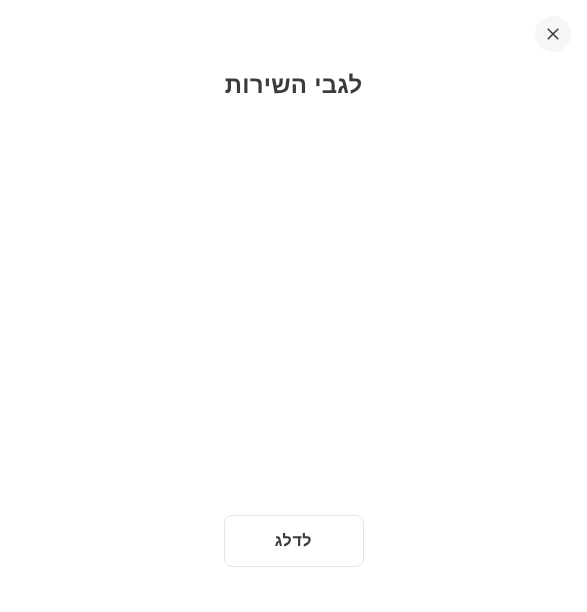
<svg xmlns="http://www.w3.org/2000/svg" width="587" height="612">
<style>
.a{font:bold 24px Arimo;letter-spacing:0.25px;direction:rtl;fill:#3b3b3b}
.b{font:bold 16px Arimo;letter-spacing:0.5px;direction:rtl;fill:#3b3b3b}
</style>
<rect width="100%" height="100%" fill="#fff"/>
<circle fill="#f6f6f6" cx="553" cy="34" r="18"/>
<image href="1.png" x="547" y="28" width="12" height="12"/>
<rect fill="none" stroke="#e5e5e5" x="224.5" y="515.5" width="139" height="51" rx="7.5"/>
<text class="a" x="363" y="93">לגבי השירות</text>
<text class="b" x="312" y="546">לדלג</text>
</svg>
